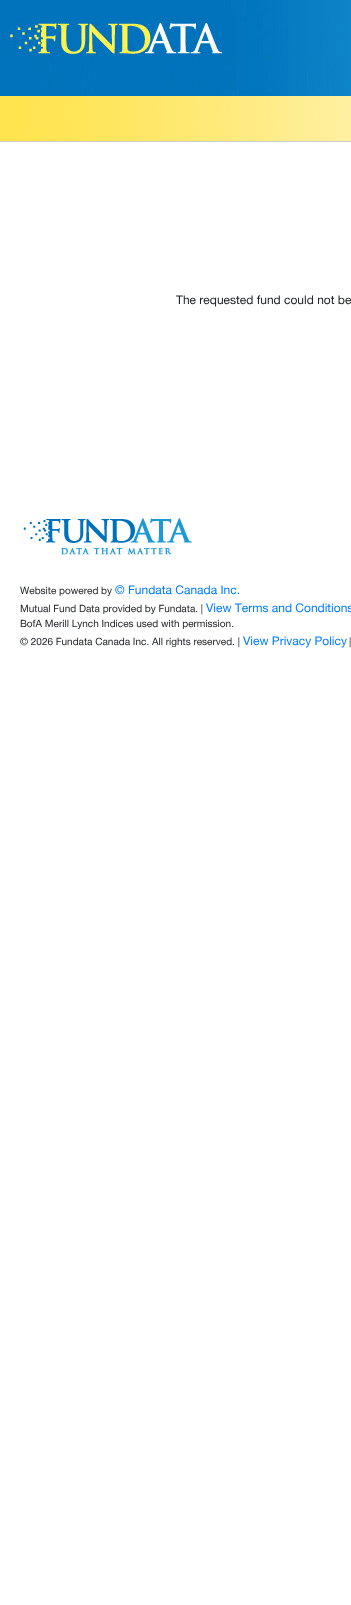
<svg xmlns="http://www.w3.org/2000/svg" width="351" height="1605">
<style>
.a{font:12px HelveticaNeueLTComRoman;fill:#212529}
.b{font:10px HelveticaNeueLTComRoman;fill:#212529}
.c{font:12px HelveticaNeueLTComRoman;fill:#007bff}
</style>
<rect width="100%" height="100%" fill="#fff"/>
<image href="1.png" x="0" y="0" width="351" height="142"/>
<image href="2.png" x="23" y="518" width="169" height="37"/>
<text class="a" x="176" y="304">The requested fund could not be</text>
<text class="b" x="20" y="594">Website powered by</text>
<text class="c" x="115" y="594">© Fundata Canada Inc.</text>
<text class="b" x="20" y="612">Mutual Fund Data provided by Fundata. |</text>
<text class="c" x="206" y="612">View Terms and Conditions</text>
<text class="b" x="20" y="627">BofA Merill Lynch Indices used with permission.</text>
<text class="b" x="20" y="645">© 2026 Fundata Canada Inc. All rights reserved. |</text>
<text class="c" x="243" y="645">View Privacy Policy</text>
<text class="b" x="349" y="645">|</text>
</svg>
